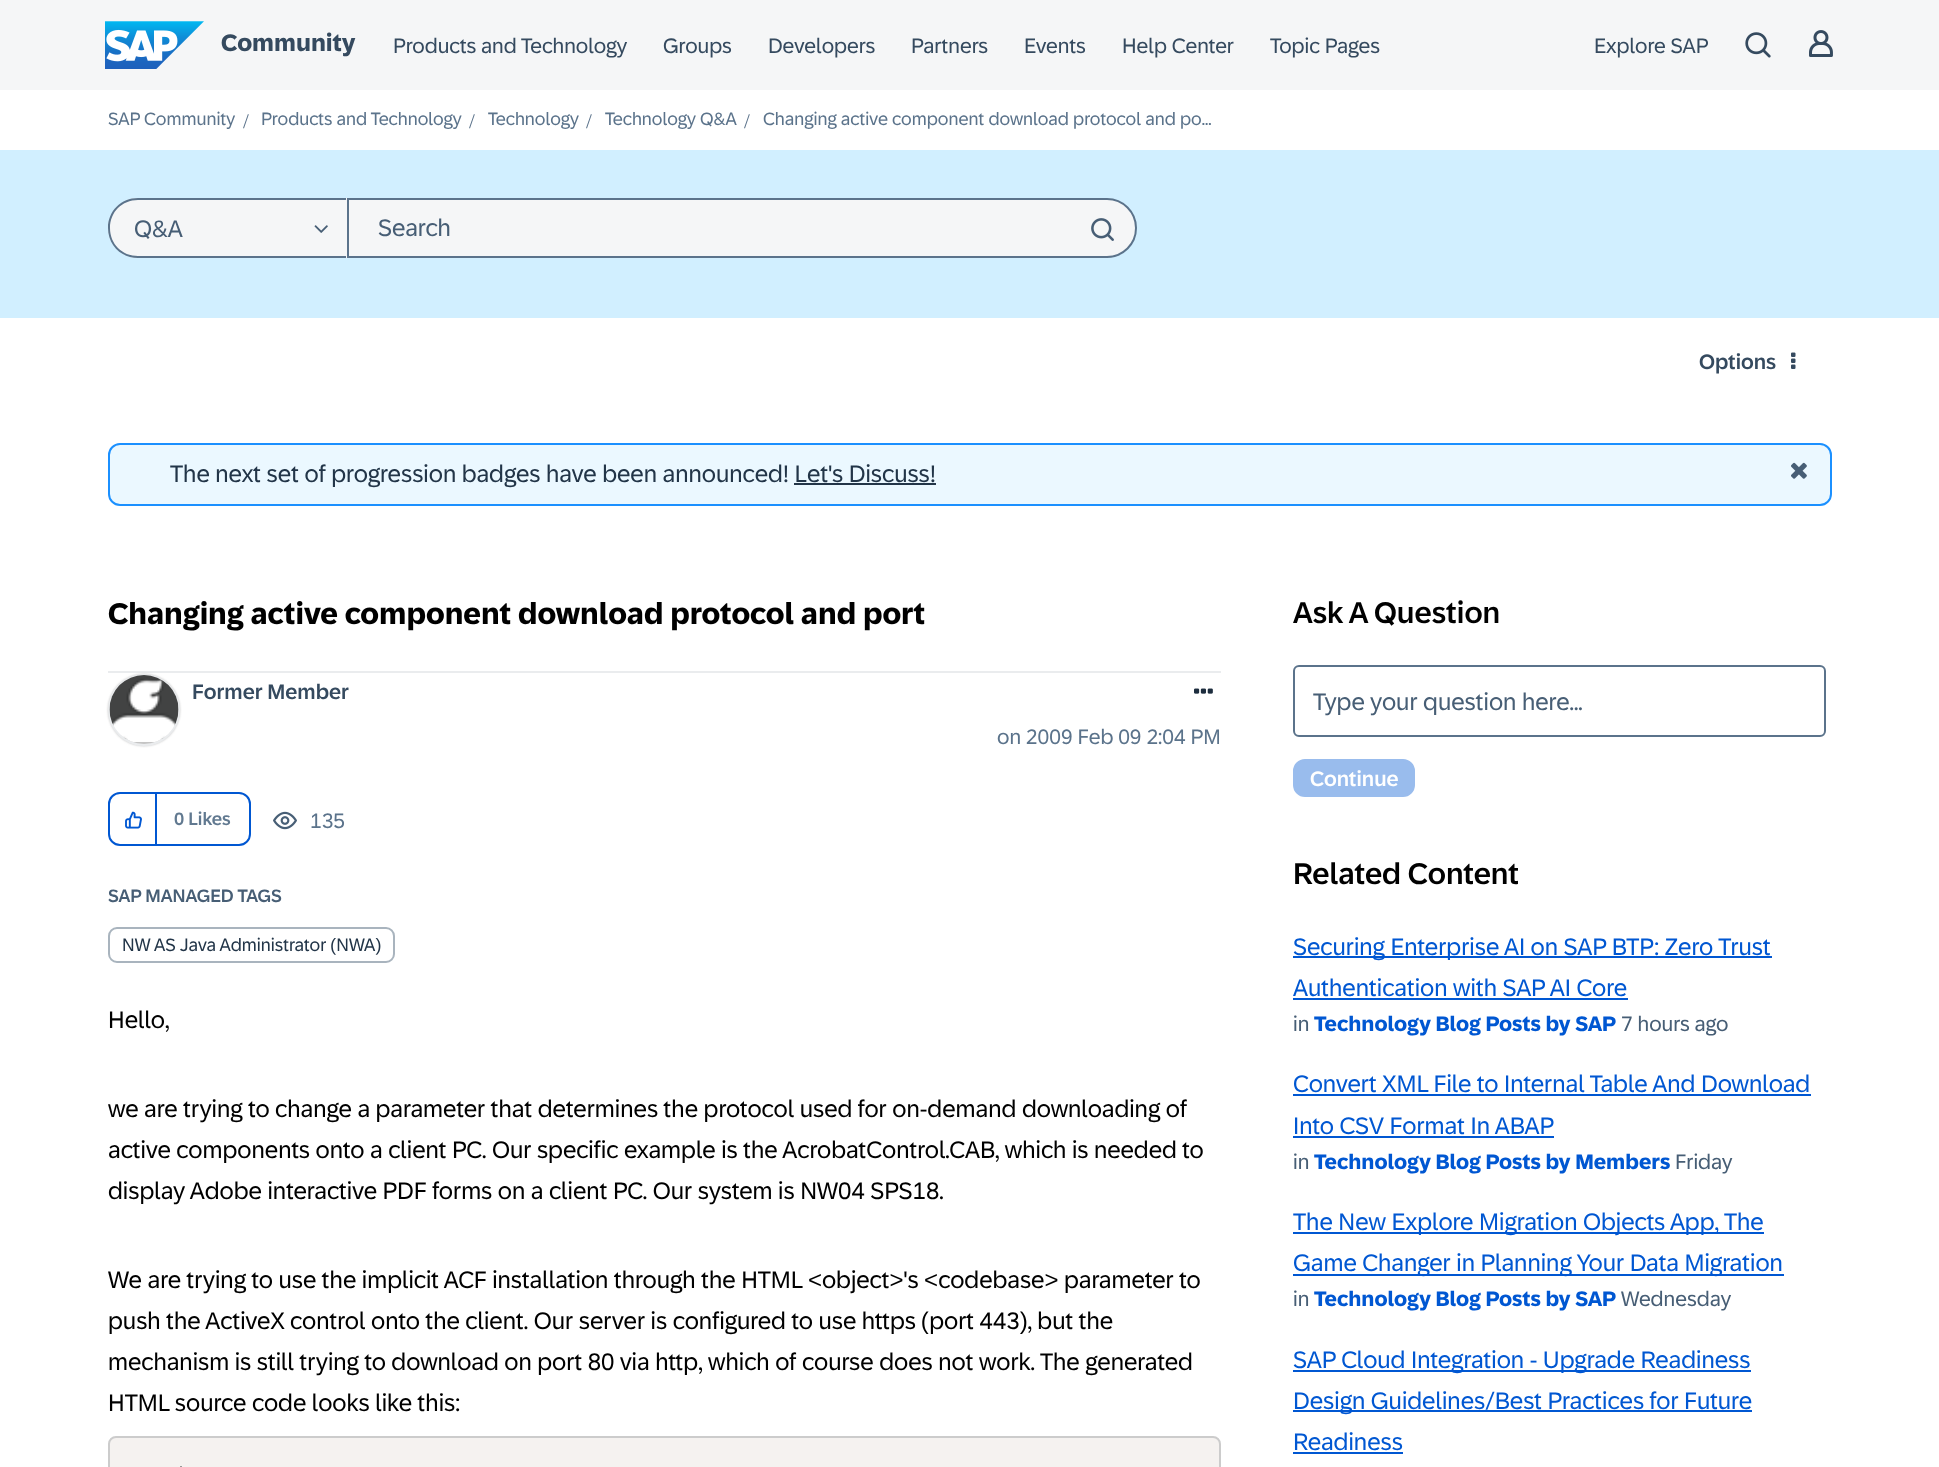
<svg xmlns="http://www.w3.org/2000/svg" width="1939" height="1467">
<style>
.a{font:bold 24px '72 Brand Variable';fill:#354a5f}
.b{font:21px '72 Brand Variable';fill:#354a5f}
.c{font:18px '72 Brand Variable';fill:#5b738b}
.d{font:21px Liberation Serif;fill:#5b738b}
.e{font:24px '72 Brand Variable';fill:#475e75}
.f{font:500 21px '72 Brand Variable';fill:#354a5f}
.g{font:24px '72 Brand Variable';fill:#223548}
.h{font:bold 30px '72 Brand Variable';fill:#000}
.i{font:21px '72 Brand Variable';fill:#5b738b}
.j{font:500 18px '72 Brand Variable';fill:#617990}
.k{font:500 18px '72 Brand Variable';fill:#475e75}
.l{font:18px '72 Brand Variable';fill:#223548}
.m{font:24px '72 Brand Variable';fill:#000}
.n{font:500 30px '72 Brand Variable';fill:#000}
.o{font:500 21px '72 Brand Variable';fill:#fff}
.p{font:24px '72 Brand Variable';fill:#0057d2}
.q{font:21px '72 Brand Variable';fill:#475e75}
.r{font:bold 21px '72 Brand Variable';fill:#0057d2}
</style>
<rect width="100%" height="100%" fill="#fff"/>
<path fill="#f5f6f7" d="M0 0h1939v90H0z"/>
<image href="1.png" x="105" y="21" width="99" height="48"/>
<image href="2.png" x="1745" y="32" width="26" height="26"/>
<image href="3.png" x="1809" y="30" width="24" height="27"/>
<path fill="#d1efff" d="M0 150h1939v168H0z"/>
<path fill="#f5f6f7" d="M138 198h209v60h-209c-16.5 0-30-13.5-30-30c0-16.5 13.5-30 30-30z"/>
<path fill="#5b738b" fill-rule="evenodd" d="M138 198h208v60h-208c-17 0-30-13-30-30c0-17 13-30 30-30zm0 2h208v56h-208c-16 0-28-12-28-28c0-16 12-28 28-28z"/>
<image href="4.png" x="314" y="225" width="14" height="8"/>
<path fill="#f5f6f7" stroke="#5b738b" stroke-width="2" d="M348 199h759c16 0 29 13 29 29c0 16-13 29-29 29h-759z"/>
<image href="5.png" x="1091" y="218" width="23" height="23"/>
<image href="6.png" x="1791" y="352" width="5" height="17"/>
<rect fill="#ebf8ff" stroke="#1b90ff" stroke-width="2" x="109" y="444" width="1722" height="61" rx="11"/>
<path fill="#223548" d="M794 483h142v2H794z"/>
<image href="7.png" x="1791" y="462" width="16" height="17"/>
<path fill="#eaecee" d="M108 671h1113v2H108z"/>
<rect fill="#c4c4c4" filter="blur(1px)" x="108" y="674" width="72" height="72" rx="36"/>
<circle fill="none" stroke="#eaecee" stroke-width="2" cx="144" cy="710" r="35"/>
<image href="8.png" x="109" y="675" width="70" height="67"/>
<image href="9.png" x="1194" y="688" width="19" height="6"/>
<rect fill="none" stroke="#0057d2" stroke-width="2" x="109" y="793" width="141" height="52" rx="11"/>
<path fill="#0057d2" d="M155 794h2v52H155z"/>
<image href="10.png" x="125" y="811" width="17" height="18"/>
<image href="11.png" x="273" y="811" width="24" height="19"/>
<rect fill="none" stroke="#a9b4be" stroke-width="2" x="109" y="928" width="285" height="34" rx="8"/>
<rect fill="#f5f2f0" stroke="#ccc" stroke-width="2" x="109" y="1437" width="1111" height="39" rx="7"/>
<path fill="#999" d="M180 1466h2v1H180z"/>
<rect fill="none" stroke="#5b738b" stroke-width="2" x="1294" y="666" width="531" height="70" rx="5"/>
<rect fill="#99bced" stroke="#99bced" stroke-width="2" x="1294" y="760" width="120" height="36" rx="11"/>
<path fill="#0057d2" d="M1293 956h479v2H1293z"/>
<path fill="#0057d2" d="M1293 998h335v2H1293z"/>
<path fill="#0057d2" d="M1293 1094h518v2H1293z"/>
<path fill="#0057d2" d="M1293 1136h261v2H1293z"/>
<path fill="#0057d2" d="M1293 1232h471v2H1293z"/>
<path fill="#0057d2" d="M1293 1274h491v2H1293z"/>
<path fill="#0057d2" d="M1293 1370h458v2H1293z"/>
<path fill="#0057d2" d="M1293 1410h459v2H1293z"/>
<path fill="#0057d2" d="M1293 1452h110v2H1293z"/>
<text class="a" x="221" y="51">Community</text>
<text class="b" x="393" y="53">Products and Technology</text>
<text class="b" x="663" y="53">Groups</text>
<text class="b" x="768" y="53">Developers</text>
<text class="b" x="911" y="53">Partners</text>
<text class="b" x="1024" y="53">Events</text>
<text class="b" x="1122" y="53">Help Center</text>
<text class="b" x="1270" y="53">Topic Pages</text>
<text class="b" x="1594" y="53">Explore SAP</text>
<text class="c" x="108" y="125">SAP Community</text>
<text class="d" x="243" y="128">/</text>
<text class="c" x="261" y="125">Products and Technology</text>
<text class="d" x="469" y="128">/</text>
<text class="c" x="488" y="125">Technology</text>
<text class="d" x="586" y="128">/</text>
<text class="c" x="605" y="125">Technology Q&amp;A</text>
<text class="d" x="744" y="128">/</text>
<text class="c" x="763" y="125">Changing active component download protocol and po...</text>
<text class="e" x="134" y="237">Q&amp;A</text>
<text class="e" x="378" y="236">Search</text>
<text class="f" x="1699" y="369">Options</text>
<text class="g" x="170" y="482">The next set of progression badges have been announced! Let's Discuss!</text>
<text class="h" x="108" y="624">Changing active component download protocol and port</text>
<text class="f" x="192" y="699">Former Member</text>
<text class="i" x="997" y="744">on 2009 Feb 09 2:04 PM</text>
<text class="j" x="174" y="825">0 Likes</text>
<text class="i" x="310" y="828">135</text>
<text class="k" x="108" y="902">SAP MANAGED TAGS</text>
<text class="l" x="122" y="951">NW AS Java Administrator (NWA)</text>
<text class="m" x="108" y="1028">Hello,</text>
<text class="m" x="108" y="1117">we are trying to change a parameter that determines the protocol used for on-demand downloading of</text>
<text class="m" x="108" y="1158">active components onto a client PC. Our specific example is the AcrobatControl.CAB, which is needed to</text>
<text class="m" x="108" y="1199">display Adobe interactive PDF forms on a client PC. Our system is NW04 SPS18.</text>
<text class="m" x="108" y="1288">We are trying to use the implicit ACF installation through the HTML &lt;object&gt;'s &lt;codebase&gt; parameter to</text>
<text class="m" x="108" y="1329">push the ActiveX control onto the client. Our server is configured to use https (port 443), but the</text>
<text class="m" x="108" y="1370">mechanism is still trying to download on port 80 via http, which of course does not work. The generated</text>
<text class="m" x="108" y="1411">HTML source code looks like this:</text>
<text class="n" x="1293" y="623">Ask A Question</text>
<text class="e" x="1313" y="710">Type your question here...</text>
<text class="o" x="1310" y="786">Continue</text>
<text class="n" x="1293" y="884">Related Content</text>
<text class="p" x="1293" y="955">Securing Enterprise AI on SAP BTP: Zero Trust</text>
<text class="p" x="1293" y="996">Authentication with SAP AI Core</text>
<text class="q" x="1293" y="1031">in</text>
<text class="r" x="1314" y="1031">Technology Blog Posts by SAP</text>
<text class="q" x="1621" y="1031">7 hours ago</text>
<text class="p" x="1293" y="1092">Convert XML File to Internal Table And Download</text>
<text class="p" x="1293" y="1134">Into CSV Format In ABAP</text>
<text class="q" x="1293" y="1169">in</text>
<text class="r" x="1314" y="1169">Technology Blog Posts by Members</text>
<text class="q" x="1675" y="1169">Friday</text>
<text class="p" x="1293" y="1230">The New Explore Migration Objects App, The</text>
<text class="p" x="1293" y="1271">Game Changer in Planning Your Data Migration</text>
<text class="q" x="1293" y="1306">in</text>
<text class="r" x="1314" y="1306">Technology Blog Posts by SAP</text>
<text class="q" x="1621" y="1306">Wednesday</text>
<text class="p" x="1293" y="1368">SAP Cloud Integration - Upgrade Readiness</text>
<text class="p" x="1293" y="1409">Design Guidelines/Best Practices for Future</text>
<text class="p" x="1293" y="1450">Readiness</text>
</svg>
